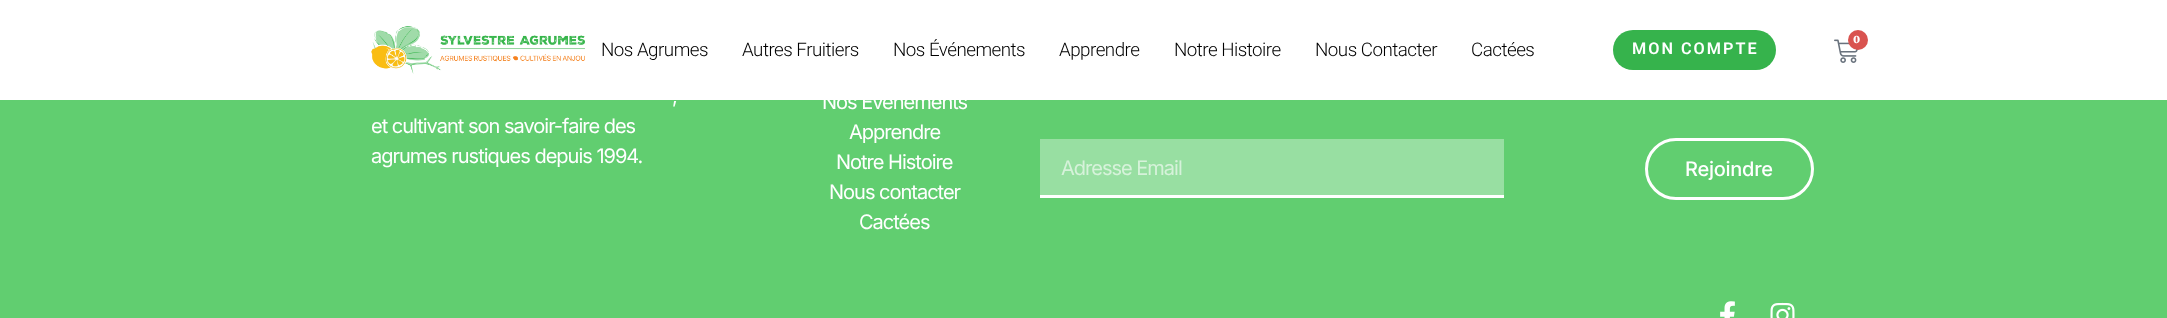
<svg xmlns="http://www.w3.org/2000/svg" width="2167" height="318">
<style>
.a{font:300 18.75px Roboto;letter-spacing:-0.5px;fill:#000}
.b{font:600 16.25px Roboto;letter-spacing:2px;fill:#fff}
.c{font:bold 12px Rozha One;fill:#fff}
.d{font:20px Inter;letter-spacing:-1px;fill:#fff}
.e{font:20px Inter;letter-spacing:-1px;fill:#d6f2da}
.f{font:500 20px Inter;letter-spacing:-0.25px;fill:#fff}
</style>
<rect width="100%" height="100%" fill="#61ce70"/>
<path fill="#fff" d="M0 0h2167v100H0z"/>
<image href="1.png" x="371" y="26" width="214" height="48"/>
<rect fill="#36b34c" x="1613" y="30" width="163" height="40" rx="20"/>
<image href="2.png" x="1834" y="39" width="24" height="24"/>
<circle fill="#d9534f" cx="1858" cy="40" r="10"/>
<path fill="#98dfa2" d="M1040 139h464v56H1040z"/>
<path fill="#fff" d="M1040 195h464v3H1040z"/>
<rect fill="none" stroke="#fff" stroke-width="3" x="1646.5" y="139.5" width="166" height="59" rx="29.5"/>
<image href="3.png" x="1720" y="301" width="15" height="17"/>
<image href="4.png" x="1770" y="302" width="25" height="16"/>
<text class="a" x="601" y="56">Nos Agrumes</text>
<text class="a" x="742" y="56">Autres Fruitiers</text>
<text class="a" x="893" y="56">Nos Événements</text>
<text class="a" x="1059" y="56">Apprendre</text>
<text class="a" x="1174" y="56">Notre Histoire</text>
<text class="a" x="1315" y="56">Nous Contacter</text>
<text class="a" x="1471" y="56">Cactées</text>
<text class="b" x="1632" y="54">MON COMPTE</text>
<text class="c" x="1853" y="43">0</text>
<text class="d" x="672" y="103">,</text>
<text class="d" x="371" y="133">et cultivant son savoir-faire des</text>
<text class="d" x="371" y="163">agrumes rustiques depuis 1994.</text>
<text class="d" x="822" y="109">Nos Événements</text>
<text class="d" x="849" y="139">Apprendre</text>
<text class="d" x="836" y="169">Notre Histoire</text>
<text class="d" x="829" y="199">Nous contacter</text>
<text class="d" x="859" y="229">Cactées</text>
<text class="e" x="1061" y="175">Adresse Email</text>
<text class="f" x="1685" y="176">Rejoindre</text>
</svg>
